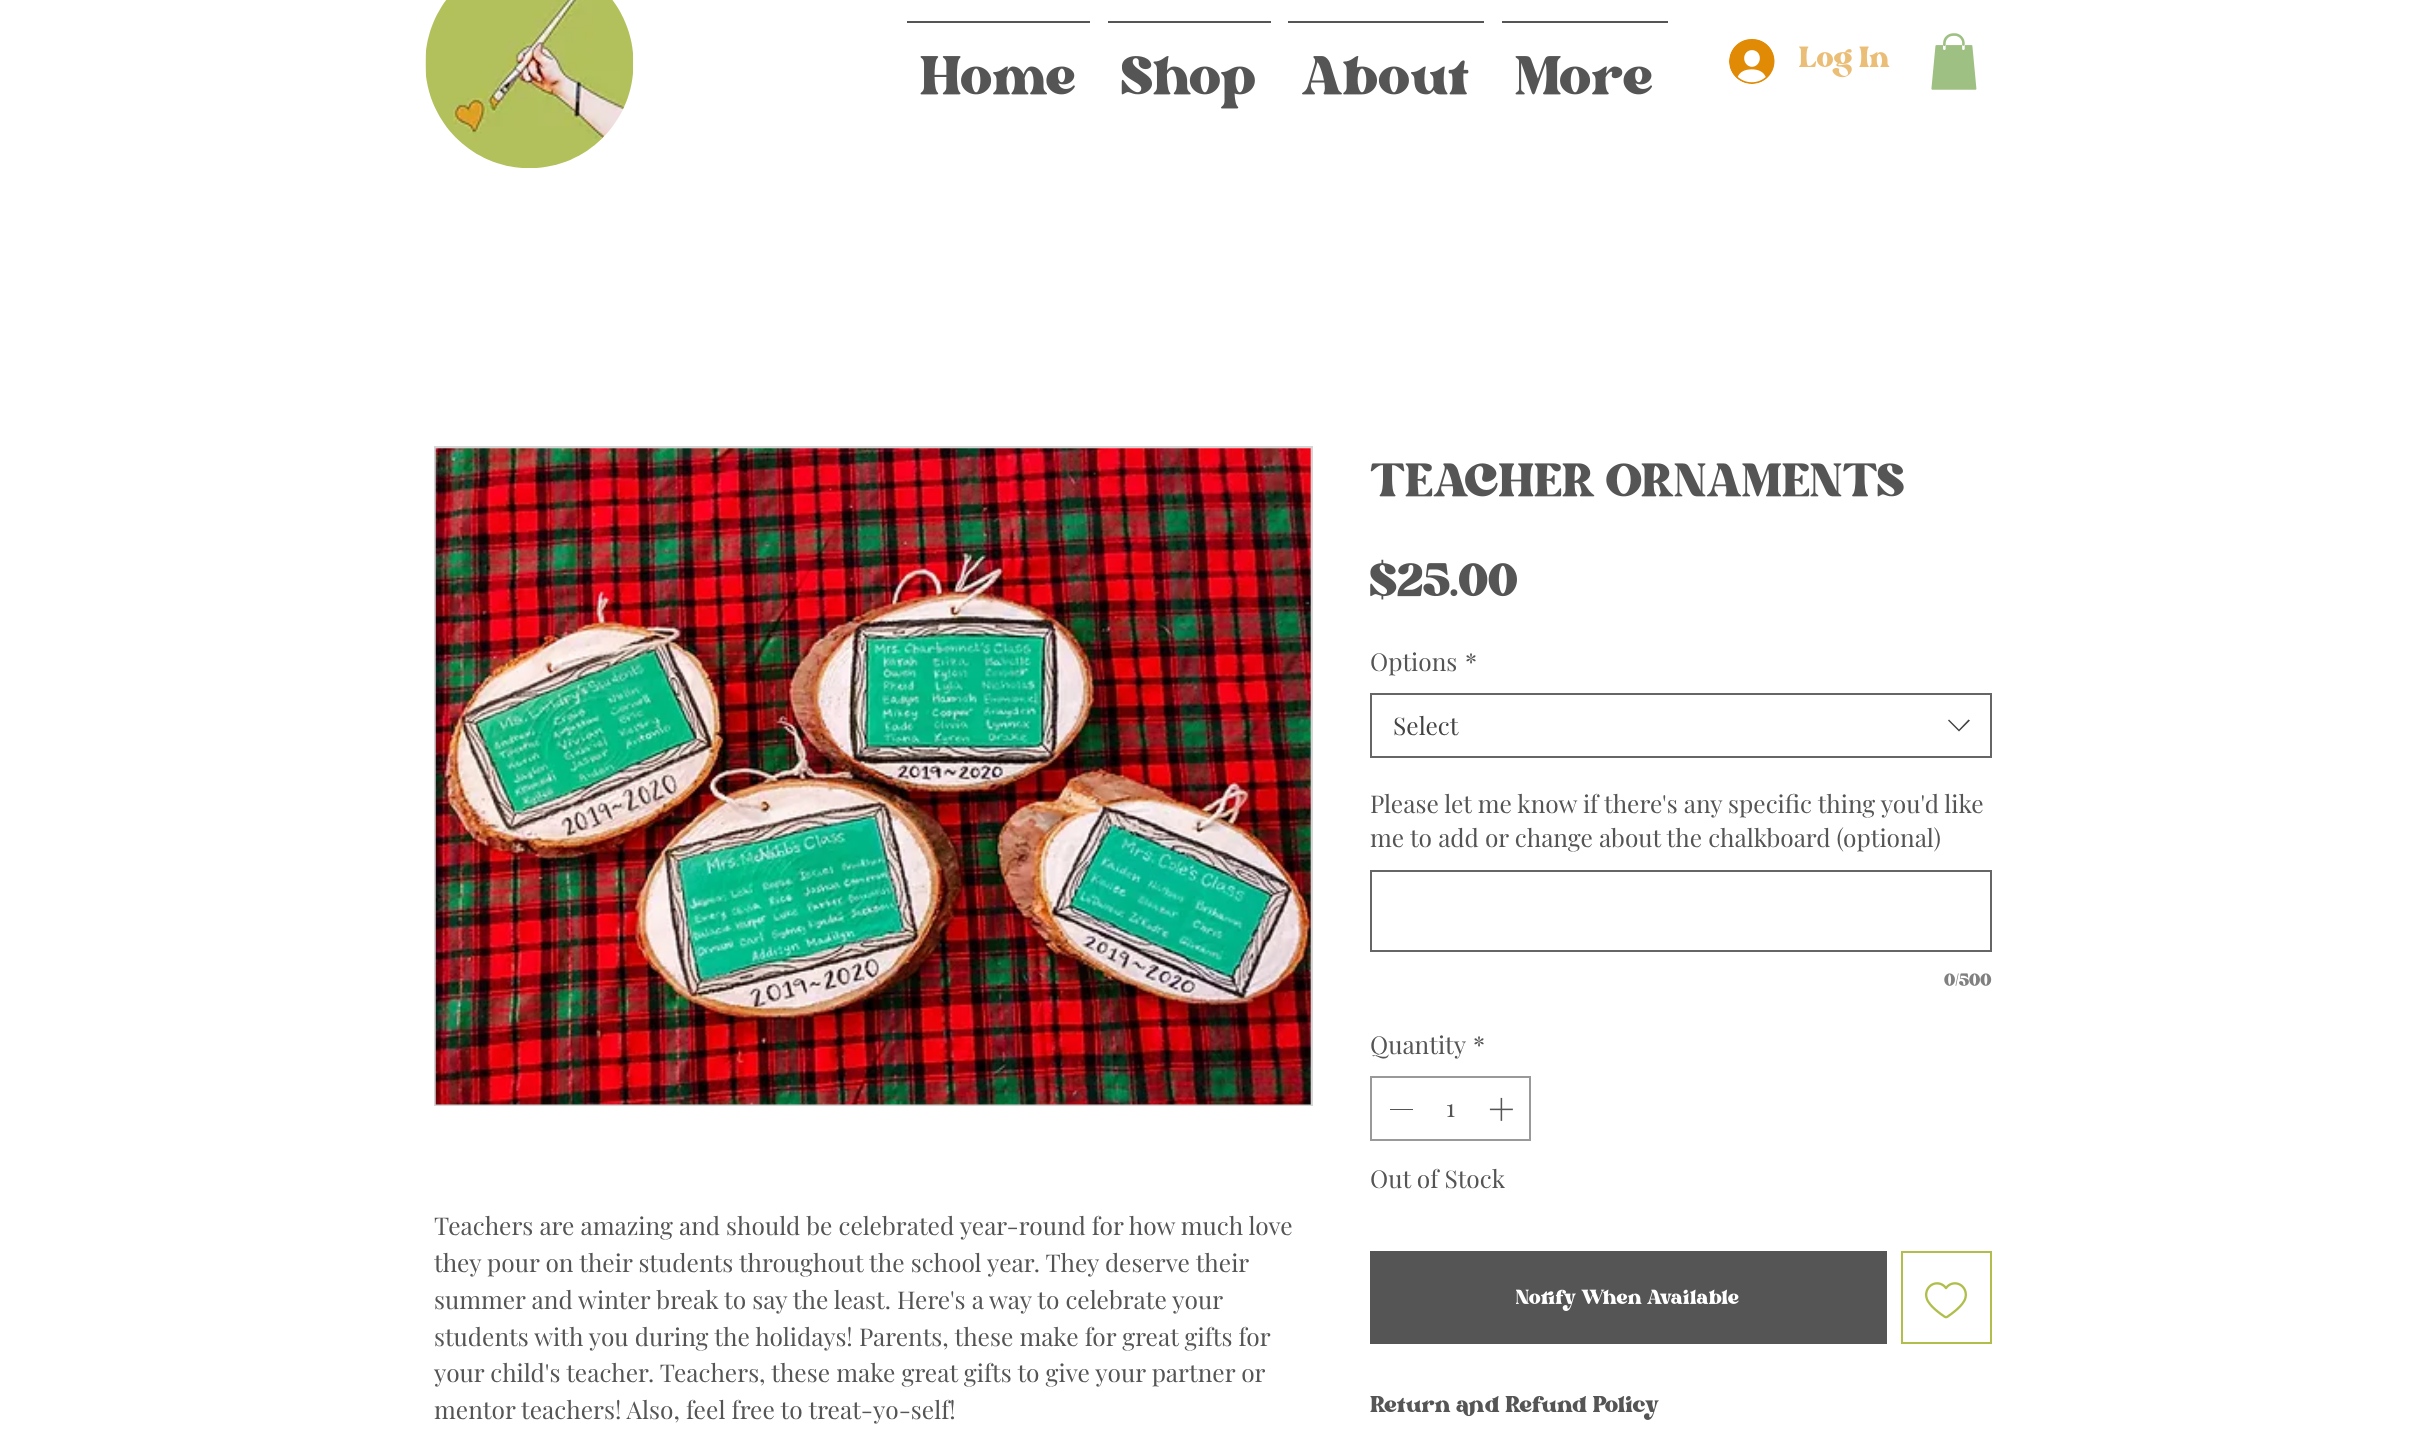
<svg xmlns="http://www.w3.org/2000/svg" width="2424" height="1456">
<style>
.a{font:24.5px Playfair Display;fill:#555}
.b{font:24.5px Playfair Display;fill:#444}
</style>
<rect width="100%" height="100%" fill="#fff"/>
<image href="1.png" x="425" y="0" width="209" height="168"/>
<path fill="#555" d="M907 21h183v2H907z"/>
<image href="2.png" x="920" y="56" width="155" height="39"/>
<path fill="#555" d="M1108 21h163v2H1108z"/>
<image href="3.png" x="1121" y="56" width="134" height="53"/>
<path fill="#555" d="M1288 21h196v2H1288z"/>
<image href="4.png" x="1302" y="56" width="167" height="39"/>
<path fill="#555" d="M1502 21h166v2H1502z"/>
<image href="5.png" x="1515" y="56" width="137" height="39"/>
<image href="6.png" x="1729" y="39" width="46" height="45"/>
<image href="7.png" x="1799" y="46" width="91" height="32"/>
<image href="8.png" x="1931" y="33" width="46" height="57"/>
<image href="9.png" x="1370" y="463" width="534" height="34"/>
<image href="10.png" x="1370" y="559" width="147" height="41"/>
<path fill="none" stroke="#666" stroke-width="2" d="M1371 694h620v63H1371z"/>
<path fill="#444" fill-rule="evenodd" d="M1968.5 719.5l1.5 1l-11 11l-11-11l1-1l10 10z"/>
<path fill="none" stroke="#666" stroke-width="2" d="M1371 871h620v80H1371z"/>
<image href="11.png" x="1944" y="973" width="48" height="13"/>
<path fill="none" stroke="#999" stroke-width="2" d="M1371 1077h159v63H1371z"/>
<path fill="#555" d="M1390 1109h23v1H1390z"/>
<image href="12.png" x="1489" y="1097" width="24" height="24"/>
<path fill="#555" d="M1370 1251h517v93H1370z"/>
<image href="13.png" x="1516" y="1289" width="223" height="22"/>
<path fill="none" stroke="#b1be4c" stroke-width="2" d="M1902 1252h89v91H1902z"/>
<image href="14.png" x="1925" y="1282" width="42" height="37"/>
<image href="15.png" x="1370" y="1396" width="289" height="24"/>
<path fill="none" stroke="#d5d5d5" stroke-width="2" d="M435 447h877v658H435z"/>
<image href="16.png" x="435" y="448" width="876" height="657"/>
<text class="a" x="1370" y="671">Options</text>
<text class="a" x="1465" y="671">*</text>
<text class="b" x="1393" y="735">Select</text>
<text class="a" x="1370" y="813">Please let me know if there's any specific thing you'd like</text>
<text class="a" x="1370" y="847">me to add or change about the chalkboard (optional)</text>
<text class="a" x="1370" y="1054">Quantity</text>
<text class="a" x="1473" y="1054">*</text>
<text class="a" x="1446" y="1117">1</text>
<text class="a" x="1370" y="1188">Out of Stock</text>
<text class="a" x="434" y="1235">Teachers are amazing and should be celebrated year-round for how much love</text>
<text class="a" x="434" y="1272">they pour on their students throughout the school year. They deserve their</text>
<text class="a" x="434" y="1309">summer and winter break to say the least. Here's a way to celebrate your</text>
<text class="a" x="434" y="1346">students with you during the holidays! Parents, these make for great gifts for</text>
<text class="a" x="434" y="1382">your child's teacher. Teachers, these make great gifts to give your partner or</text>
<text class="a" x="434" y="1419">mentor teachers! Also, feel free to treat-yo-self!</text>
</svg>
